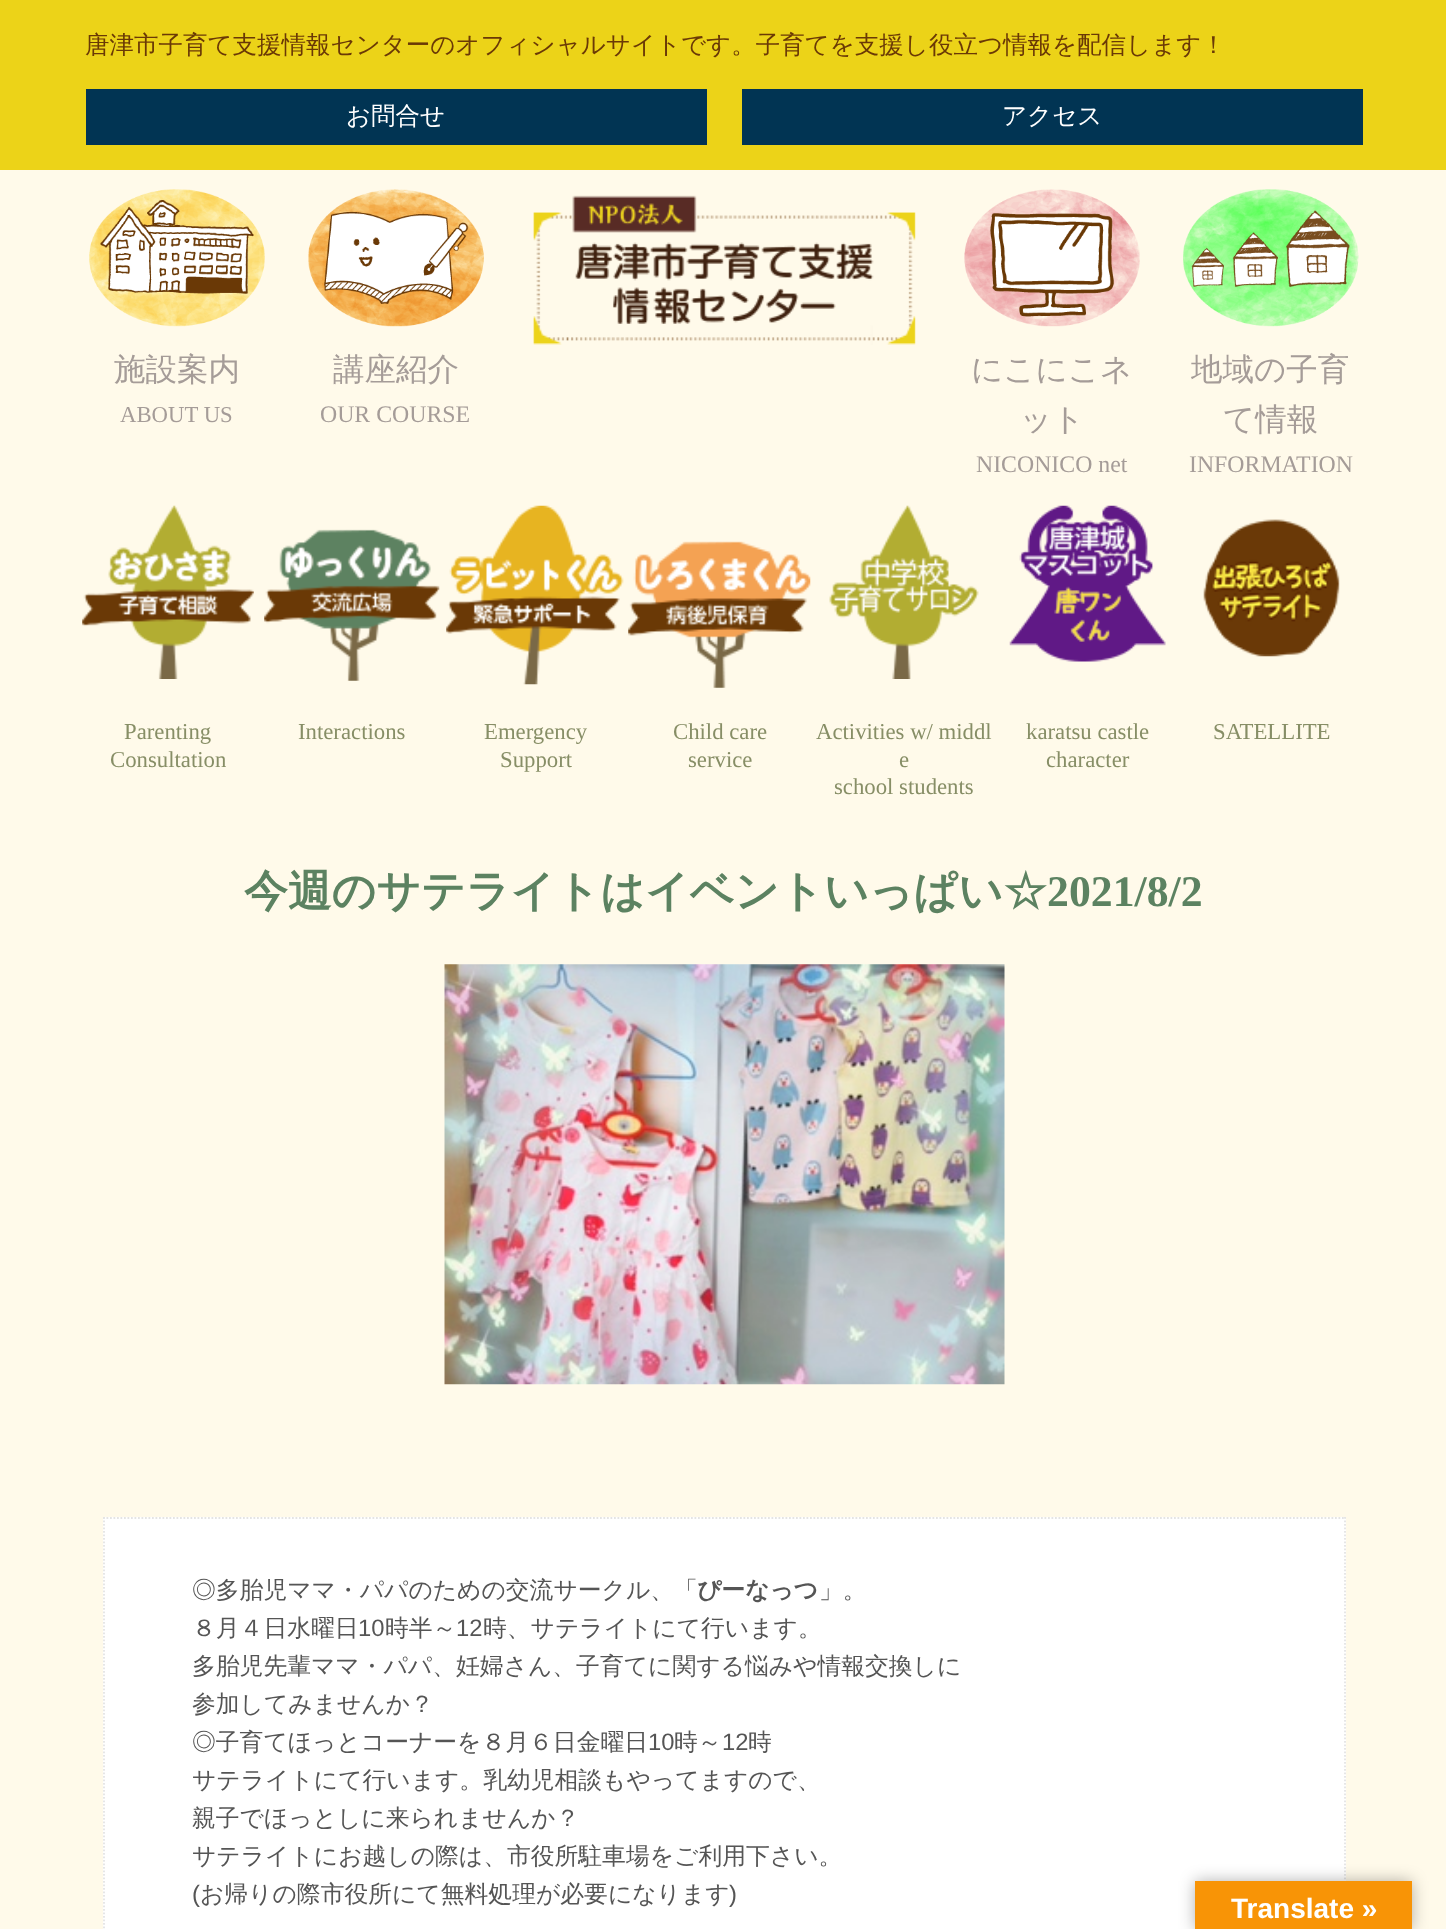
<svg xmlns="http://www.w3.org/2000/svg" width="1446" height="1929">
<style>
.a{font:500 24.5px WenQuanYi Zen Hei;fill:#6a3906}
.b{font:500 24.5px WenQuanYi Zen Hei;fill:#fff}
.c{font:500 31.5px WenQuanYi Zen Hei;fill:#a59c98}
.d{font:22.75px Liberation Serif;fill:#a59c98}
.e{font:23.8px Liberation Serif;fill:#a59c98}
.f{font:22.75px Liberation Serif;fill:#878e66}
.g{font:bold 43.75px WenQuanYi Zen Hei;fill:#5c8261}
.h{font:bold 43.75px Liberation Serif;fill:#5c8261}
.i{font:500 23.8px WenQuanYi Zen Hei;fill:#555}
.j{font:bold 23.8px WenQuanYi Zen Hei;fill:#555}
.k{font:23.8px Liberation Sans;fill:#555}
.l{font:bold 28px Liberation Sans;fill:#fff}
</style>
<rect width="100%" height="100%" fill="#fffaea"/>
<path fill="#ecd318" d="M0 0h1446v170H0z"/>
<path fill="#013453" d="M86 89h621v56H86z"/>
<path fill="#013453" d="M742 89h621v56H742z"/>
<image href="1.png" x="533" y="195" width="383" height="150"/>
<image href="2.png" x="89" y="189" width="176" height="138"/>
<image href="3.png" x="308" y="189" width="176" height="138"/>
<image href="4.png" x="964" y="189" width="176" height="138"/>
<image href="5.png" x="1183" y="189" width="176" height="138"/>
<image href="6.png" x="82" y="505" width="172" height="174"/>
<image href="7.png" x="264" y="529" width="176" height="152"/>
<image href="8.png" x="446" y="505" width="178" height="180"/>
<image href="9.png" x="628" y="541" width="183" height="147"/>
<image href="10.png" x="829" y="505" width="150" height="174"/>
<image href="11.png" x="1009" y="505" width="157" height="157"/>
<image href="12.png" x="1203" y="519" width="137" height="138"/>
<image href="13.png" x="444" y="964" width="561" height="421"/>
<path fill="#fff" d="M103 1517h1243v412H103z"/>
<path fill="none" stroke="#e4e4e4" stroke-width="1.8" stroke-dasharray="1.75 1.75" d="M103 1518h1243"/>
<path fill="none" stroke="#e4e4e4" stroke-width="1.8" stroke-dasharray="1.75 1.75" d="M1345 1517v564"/>
<path fill="none" stroke="#e4e4e4" stroke-width="1.8" stroke-dasharray="1.75 1.75" d="M104 1517v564"/>
<path fill="#0000004d" filter="blur(8px)" d="M1195 1881h217v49H1195z"/>
<path fill="#f89406" d="M1195 1881h217v48H1195z"/>
<text class="a" x="85" y="53">唐津市子育て支援情報センターのオフィシャルサイトです。子育てを支援し役立つ情報を配信します！</text>
<text class="b" x="346" y="124">お問合せ</text>
<text class="b" x="1002" y="124">アクセス</text>
<text class="c" x="114" y="380">施設案内</text>
<text class="d" x="120" y="422">ABOUT US</text>
<text class="c" x="333" y="380">講座紹介</text>
<text class="e" x="320" y="422">OUR COURSE</text>
<text class="c" x="971" y="380">にこにこネ</text>
<text class="c" x="1020" y="430">ット</text>
<text class="e" x="976" y="472">NICONICO net</text>
<text class="c" x="1191" y="380">地域の子育</text>
<text class="c" x="1223" y="430">て情報</text>
<text class="e" x="1189" y="472">INFORMATION</text>
<text class="f" x="124" y="739">Parenting</text>
<text class="f" x="110" y="767">Consultation</text>
<text class="f" x="298" y="739">Interactions</text>
<text class="f" x="484" y="739">Emergency</text>
<text class="f" x="500" y="767">Support</text>
<text class="f" x="673" y="739">Child care</text>
<text class="f" x="688" y="767">service</text>
<text class="f" x="816" y="739">Activities w/ middl</text>
<text class="f" x="899" y="767">e</text>
<text class="f" x="834" y="794">school students</text>
<text class="f" x="1026" y="739">karatsu castle</text>
<text class="f" x="1046" y="767">character</text>
<text class="f" x="1213" y="739">SATELLITE</text>
<text class="g" x="244" y="906">今週のサテライトはイベントいっぱい☆</text>
<text class="h" x="1047" y="906">2021/8/2</text>
<text class="i" x="192" y="1598">◎多胎児ママ・パパのための交流サークル、「</text>
<text class="j" x="697" y="1598">ぴーなっつ</text>
<text class="i" x="819" y="1598">」。</text>
<text class="i" x="192" y="1636">８月４日水曜日</text>
<text class="k" x="358" y="1636">10</text>
<text class="i" x="385" y="1636">時半～</text>
<text class="k" x="456" y="1636">12</text>
<text class="i" x="483" y="1636">時、サテライトにて行います。</text>
<text class="i" x="192" y="1674">多胎児先輩ママ・パパ、妊婦さん、子育てに関する悩みや情報交換しに</text>
<text class="i" x="192" y="1712">参加してみませんか？</text>
<text class="i" x="192" y="1750">◎子育てほっとコーナーを８月６日金曜日</text>
<text class="k" x="648" y="1750">10</text>
<text class="i" x="674" y="1750">時～</text>
<text class="k" x="722" y="1750">12</text>
<text class="i" x="748" y="1750">時</text>
<text class="i" x="192" y="1788">サテライトにて行います。乳幼児相談もやってますので、</text>
<text class="i" x="192" y="1826">親子でほっとしに来られませんか？</text>
<text class="i" x="192" y="1864">サテライトにお越しの際は、市役所駐車場をご利用下さい。</text>
<text class="k" x="192" y="1902">(</text>
<text class="i" x="200" y="1902">お帰りの際市役所にて無料処理が必要になります</text>
<text class="k" x="729" y="1902">)</text>
<text class="l" x="1231" y="1918">Translate »</text>
</svg>
